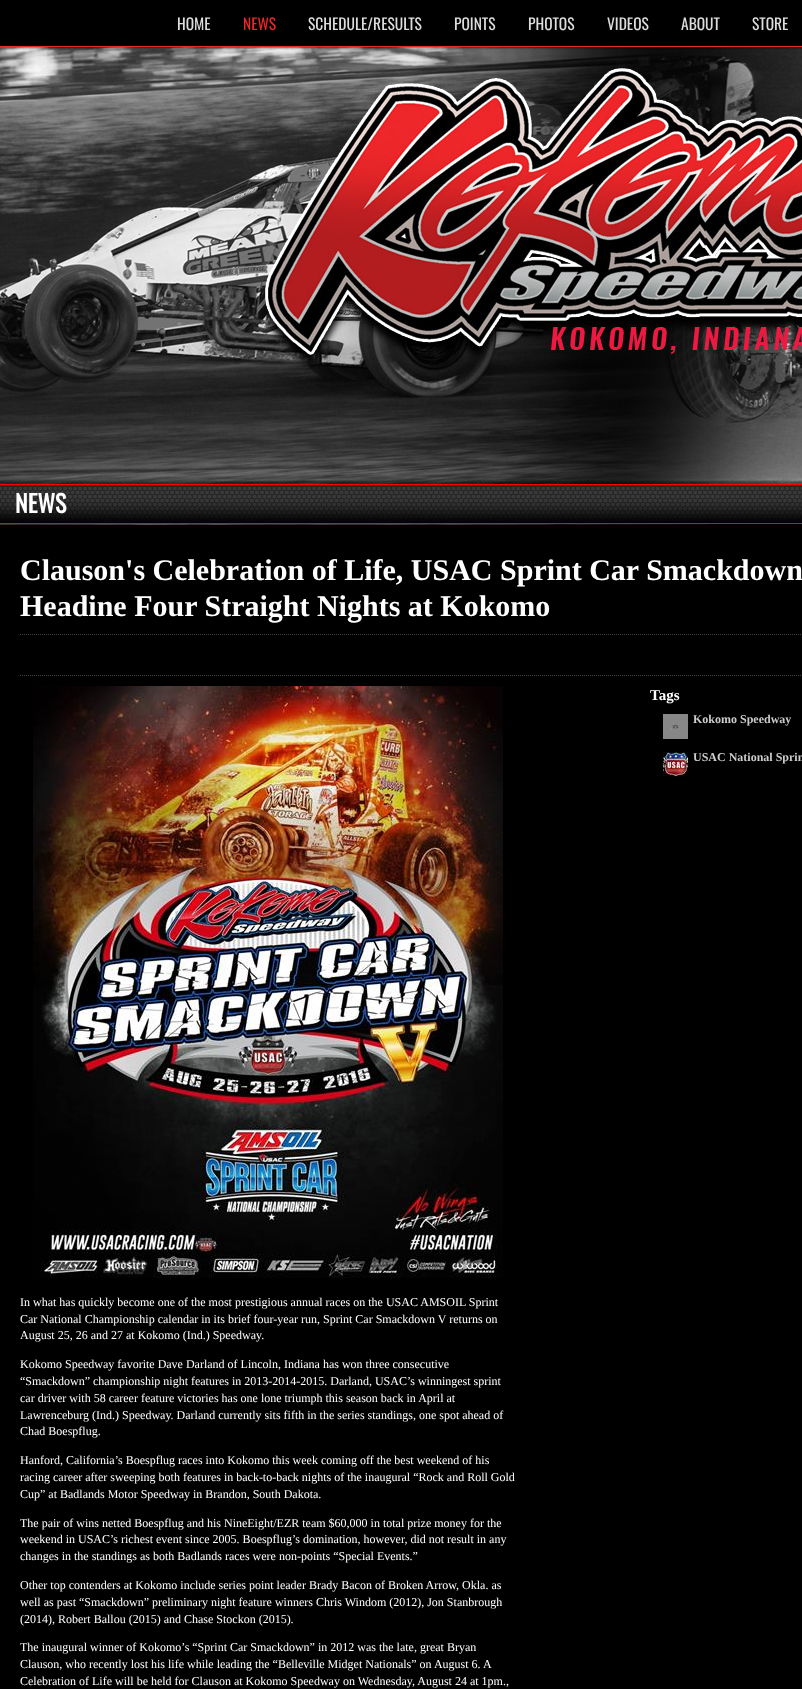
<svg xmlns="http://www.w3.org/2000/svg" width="802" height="1689">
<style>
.a{font:15.5px Oswald;fill:#ddd}
.b{font:15.5px Oswald;fill:#ed2629}
.c{font:bold 24px Oswald;fill:#fff}
.d{font:bold 30px Liberation Serif;fill:#fff}
.e{font:bold 15px Liberation Serif;fill:#fff}
.f{font:bold 12px Liberation Serif;fill:#ccc}
.g{font:12px Liberation Serif;fill:#fff}
</style>
<rect width="100%" height="100%" fill="#000"/>
<image href="1.png" x="0" y="47" width="802" height="481"/>
<path fill="#000" filter="blur(1.5px)" d="M0 0h802v47H0z"/>
<path fill="#ed2629" d="M0 46h802v1H0z"/>
<path fill="none" stroke="#403f3f" stroke-dasharray="1 1" d="M20 634.5h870"/>
<path fill="none" stroke="#403f3f" stroke-dasharray="1 1" d="M20 675.5h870"/>
<image href="2.png" x="663" y="714" width="25" height="25"/>
<image href="3.png" x="663" y="752" width="25" height="25"/>
<image href="4.png" x="33" y="686" width="470" height="592"/>
<text class="a" x="177" y="30">HOME</text>
<text class="b" x="243" y="30">NEWS</text>
<text class="a" x="308" y="30">SCHEDULE/RESULTS</text>
<text class="a" x="454" y="30">POINTS</text>
<text class="a" x="528" y="30">PHOTOS</text>
<text class="a" x="607" y="30">VIDEOS</text>
<text class="a" x="681" y="30">ABOUT</text>
<text class="a" x="752" y="30">STORE</text>
<text class="c" x="15" y="513">NEWS</text>
<text class="d" x="20" y="580">Clauson's Celebration of Life, USAC Sprint Car Smackdown</text>
<text class="d" x="20" y="616">Headine Four Straight Nights at Kokomo</text>
<text class="e" x="650" y="700">Tags</text>
<text class="f" x="693" y="723">Kokomo Speedway</text>
<text class="f" x="693" y="761">USAC National Sprin</text>
<text class="g" x="20" y="1306">In what has quickly become one of the most prestigious annual races on the USAC AMSOIL Sprint</text>
<text class="g" x="20" y="1323">Car National Championship calendar in its brief four-year run, Sprint Car Smackdown V returns on</text>
<text class="g" x="20" y="1339">August 25, 26 and 27 at Kokomo (Ind.) Speedway.</text>
<text class="g" x="20" y="1368">Kokomo Speedway favorite Dave Darland of Lincoln, Indiana has won three consecutive</text>
<text class="g" x="20" y="1385">“Smackdown” championship night features in 2013-2014-2015. Darland, USAC’s winningest sprint</text>
<text class="g" x="20" y="1402">car driver with 58 career feature victories has one lone triumph this season back in April at</text>
<text class="g" x="20" y="1419">Lawrenceburg (Ind.) Speedway. Darland currently sits fifth in the series standings, one spot ahead of</text>
<text class="g" x="20" y="1435">Chad Boespflug.</text>
<text class="g" x="20" y="1464">Hanford, California’s Boespflug races into Kokomo this week coming off the best weekend of his</text>
<text class="g" x="20" y="1481">racing career after sweeping both features in back-to-back nights of the inaugural “Rock and Roll Gold</text>
<text class="g" x="20" y="1498">Cup” at Badlands Motor Speedway in Brandon, South Dakota.</text>
<text class="g" x="20" y="1527">The pair of wins netted Boespflug and his NineEight/EZR team $60,000 in total prize money for the</text>
<text class="g" x="20" y="1543">weekend in USAC’s richest event since 2005. Boespflug’s domination, however, did not result in any</text>
<text class="g" x="20" y="1560">changes in the standings as both Badlands races were non-points “Special Events.”</text>
<text class="g" x="20" y="1589">Other top contenders at Kokomo include series point leader Brady Bacon of Broken Arrow, Okla. as</text>
<text class="g" x="20" y="1606">well as past “Smackdown” preliminary night feature winners Chris Windom (2012), Jon Stanbrough</text>
<text class="g" x="20" y="1623">(2014), Robert Ballou (2015) and Chase Stockon (2015).</text>
<text class="g" x="20" y="1651">The inaugural winner of Kokomo’s “Sprint Car Smackdown” in 2012 was the late, great Bryan</text>
<text class="g" x="20" y="1668">Clauson, who recently lost his life while leading the “Belleville Midget Nationals” on August 6. A</text>
<text class="g" x="20" y="1685">Celebration of Life will be held for Clauson at Kokomo Speedway on Wednesday, August 24 at 1pm.,</text>
</svg>
